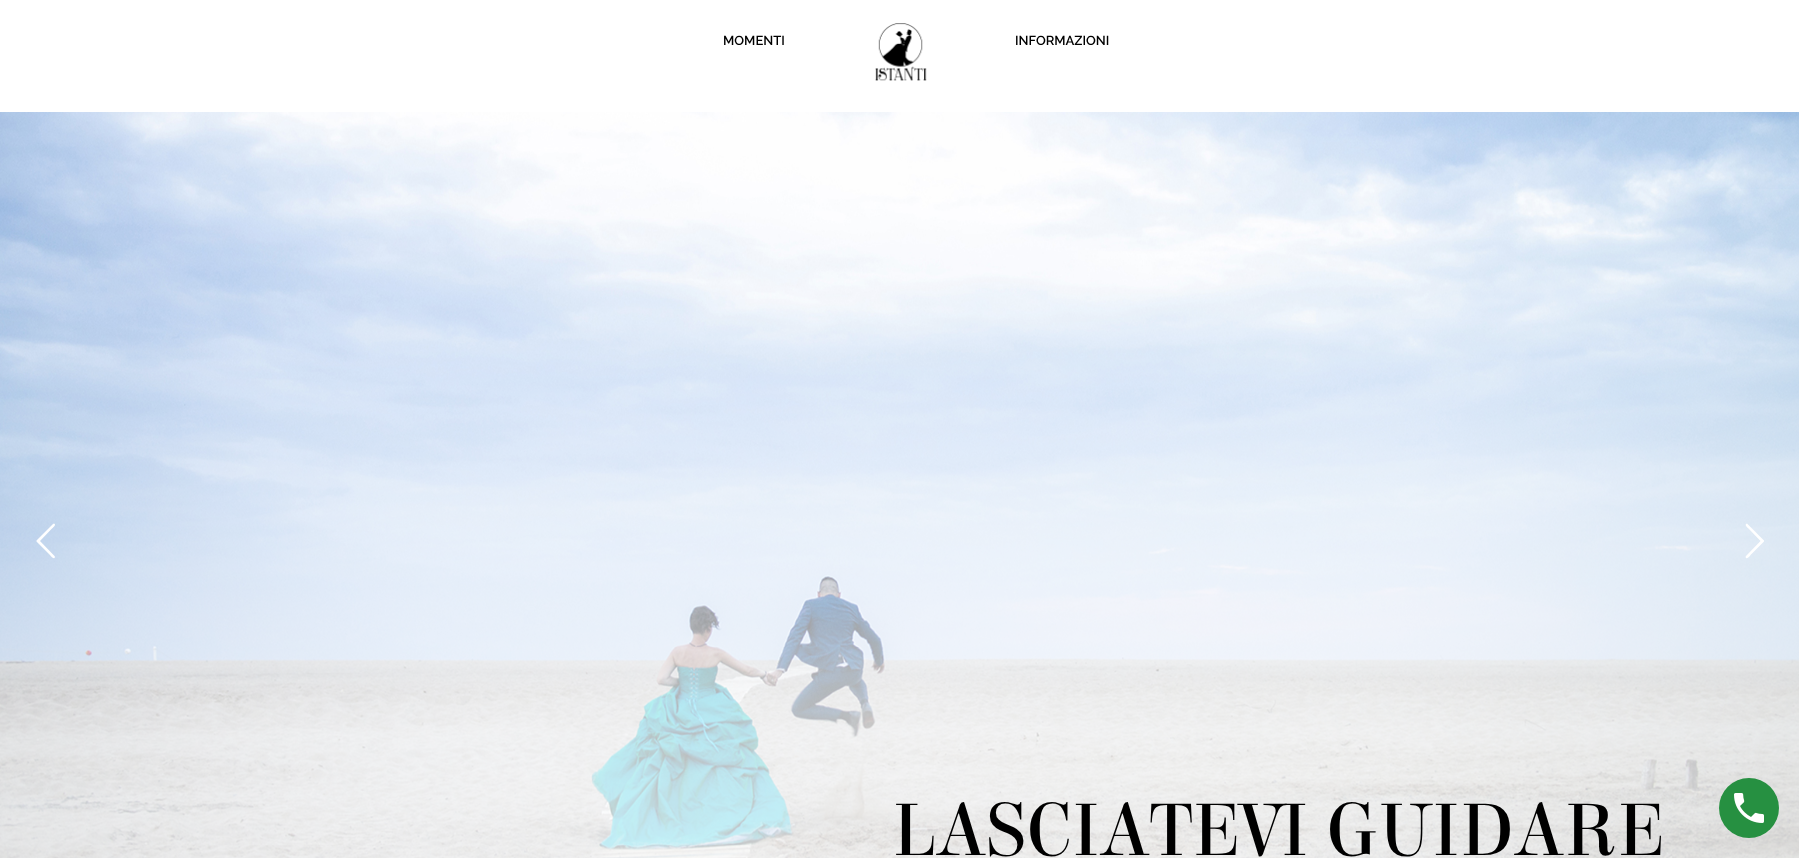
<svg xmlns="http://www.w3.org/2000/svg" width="1799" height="858">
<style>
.a{font:600 13px Raleway;fill:#000}
.b{font:79px Elsie;fill:#000}
</style>
<rect width="100%" height="100%" fill="#fff"/>
<image href="1.png" x="875" y="23" width="52" height="58"/>
<image href="2.png" x="0" y="112" width="1799" height="746"/>
<image href="3.png" x="0" y="189" width="1799" height="669"/>
<path fill="#fffffffa" d="M54.5 556l.5 1c-1 3.5-4.5-1.5-5-2l-13.5-13.5v-1l16.5-16.5l1-.5c3 1-1.5 4.5-2 5l-12 12.5z"/>
<path fill="#fffffffa" d="M1746 556l14.5-15l-12-12.5c-.5-.5-5-4-1.5-5l.5 .5l16.5 16.5v1l-13.5 13.5c0 .5-4 5.5-5 2z"/>
<circle fill="#269041" cx="1749" cy="808" r="30"/>
<image href="4.png" x="1734" y="793" width="30" height="30"/>
<text class="a" x="723" y="45">MOMENTI</text>
<text class="a" x="1015" y="45">INFORMAZIONI</text>
<text class="b" x="892" y="855">LASCIATEVI GUIDARE</text>
</svg>
